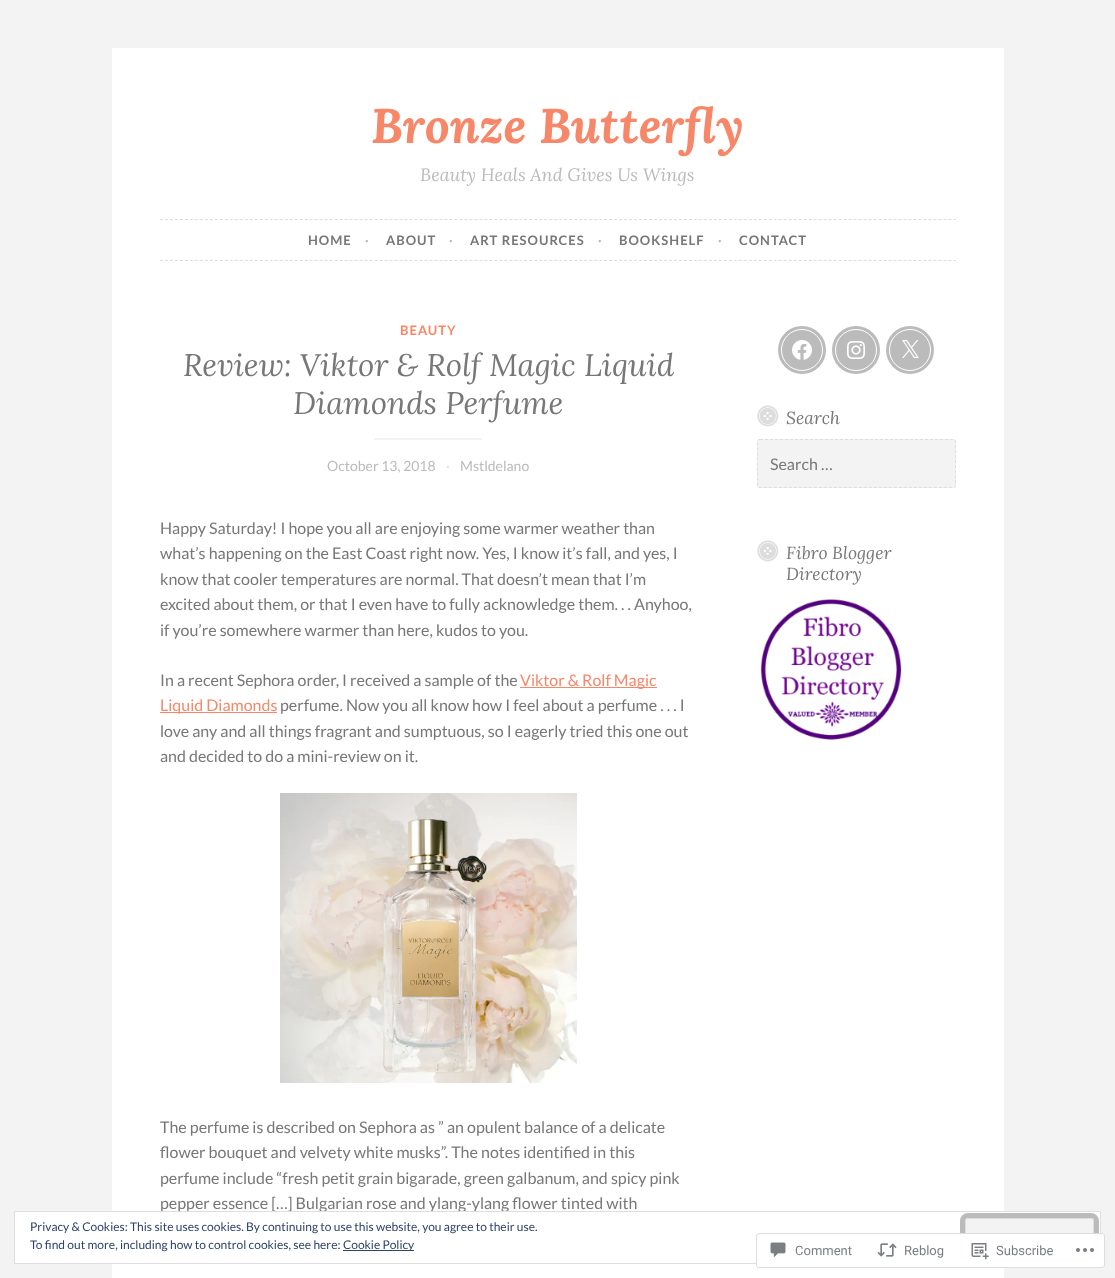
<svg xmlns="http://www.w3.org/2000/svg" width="1115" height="1278">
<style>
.a{font:italic bold 48.75px Lora;fill:#f78769}
.b{font:italic 18px Lora;fill:#bbb}
.c{font:bold 13px Lato;letter-spacing:1px;fill:#777}
.d{font:bold 13px Lato;letter-spacing:1px;fill:#bbb}
.e{font:bold 13px Lato;letter-spacing:1px;fill:#f78769}
.f{font:italic 31.25px Lora;fill:#777}
.g{font:14px Lato;fill:#bbb}
.h{font:14px Lato;fill:#ddd}
.i{font:16px Lato;fill:#777}
.j{font:16px Lato;fill:#f78769}
.k{font:italic 17.5px Lora;fill:#777}
.l{font:12px Lato;fill:#2e4467}
.m{font:13px Roboto;fill:#7b7f85}
</style>
<rect width="100%" height="100%" fill="#f3f3f3"/>
<path fill="#fff" d="M112 48h892v1230H112z"/>
<path fill="none" stroke="#ddd" stroke-dasharray="3 1.99" d="M160 219.5h796"/>
<path fill="none" stroke="#ddd" stroke-dasharray="3 1.99" d="M160 260.5h796"/>
<path fill="#f3f3f3" d="M374 438h108v2H374z"/>
<path fill="#f78769" d="M520 687h137v1H520z"/>
<path fill="#f78769" d="M160 712h117v1H160z"/>
<image href="1.png" x="280" y="793" width="297" height="290"/>
<circle fill="#bbb" cx="802" cy="350" r="24"/>
<image href="2.png" x="792" y="340" width="20" height="20"/>
<circle fill="none" stroke="#fff" cx="802" cy="350" r="20.5"/>
<circle fill="#bbb" cx="856" cy="350" r="24"/>
<image href="3.png" x="847" y="341" width="18" height="18"/>
<circle fill="none" stroke="#fff" cx="856" cy="350" r="20.5"/>
<circle fill="#bbb" cx="910" cy="350" r="24"/>
<image href="4.png" x="902" y="340" width="17" height="18"/>
<circle fill="none" stroke="#fff" cx="910" cy="350" r="20.5"/>
<image href="5.png" x="757" y="405" width="22" height="22"/>
<rect fill="#f3f3f3" x="757" y="439" width="199" height="49" rx="3"/>
<path fill="none" stroke="#ddd" stroke-dasharray="3 2" d="M760 439.5h193c1.5 0 2.5 1 2.5 2.5v43c0 1.5-1 2.5-2.5 2.5h-193c-1.5 0-2.5-1-2.5-2.5v-43c0-1.5 1-2.5 2.5-2.5z"/>
<image href="5.png" x="757" y="540" width="22" height="22"/>
<image href="6.png" x="760" y="599" width="142" height="141"/>
<text class="a" x="371" y="143">Bronze Butterfly</text>
<text class="b" x="420" y="181">Beauty Heals And Gives Us Wings</text>
<text class="c" x="308" y="245">HOME</text>
<text class="d" x="365" y="245">·</text>
<text class="c" x="386" y="245">ABOUT</text>
<text class="d" x="449" y="245">·</text>
<text class="c" x="470" y="245">ART RESOURCES</text>
<text class="d" x="598" y="245">·</text>
<text class="c" x="619" y="245">BOOKSHELF</text>
<text class="d" x="718" y="245">·</text>
<text class="c" x="739" y="245">CONTACT</text>
<text class="e" x="400" y="335">BEAUTY</text>
<text class="f" x="183" y="376">Review: Viktor &amp; Rolf Magic Liquid</text>
<text class="f" x="293" y="414">Diamonds Perfume</text>
<text class="g" x="327" y="471">October 13, 2018</text>
<text class="h" x="446" y="471">·</text>
<text class="g" x="460" y="471">Mstldelano</text>
<text class="i" x="160" y="534">Happy Saturday! I hope you all are enjoying some warmer weather than</text>
<text class="i" x="160" y="559">what’s happening on the East Coast right now. Yes, I know it’s fall, and yes, I</text>
<text class="i" x="160" y="585">know that cooler temperatures are normal. That doesn’t mean that I’m</text>
<text class="i" x="160" y="610">excited about them, or that I even have to fully acknowledge them. . . Anyhoo,</text>
<text class="i" x="160" y="636">if you’re somewhere warmer than here, kudos to you.</text>
<text class="i" x="160" y="686">In a recent Sephora order, I received a sample of the</text>
<text class="j" x="520" y="686">Viktor &amp; Rolf Magic</text>
<text class="j" x="160" y="711">Liquid Diamonds</text>
<text class="i" x="280" y="711">perfume. Now you all know how I feel about a perfume . . . I</text>
<text class="i" x="160" y="737">love any and all things fragrant and sumptuous, so I eagerly tried this one out</text>
<text class="i" x="160" y="762">and decided to do a mini-review on it.</text>
<text class="i" x="160" y="1133">The perfume is described on Sephora as ” an opulent balance of a delicate</text>
<text class="i" x="160" y="1158">flower bouquet and velvety white musks”. The notes identified in this</text>
<text class="i" x="160" y="1184">perfume include “fresh petit grain bigarade, green galbanum, and spicy pink</text>
<text class="i" x="160" y="1209">pepper essence […] Bulgarian rose and ylang-ylang flower tinted with</text>
<text class="k" x="786" y="424">Search</text>
<text class="i" x="770" y="470">Search …</text>
<text class="k" x="786" y="559">Fibro Blogger</text>
<text class="k" x="786" y="580">Directory</text>
<path fill="#fff" stroke="#dedede" d="M14.5 1211.5h1086v52H14.5z"/>
<text class="l" x="30" y="1231">Privacy &amp; Cookies: This site uses cookies. By continuing to use this website, you agree to their use.</text>
<rect fill="#f3f3f3" stroke="#dedede" x="965.5" y="1218.5" width="128" height="38" rx="2.5"/>
<rect fill="none" stroke="#bbb" stroke-width="5" x="962.5" y="1215.5" width="134" height="44" rx="5.5"/>
<text class="l" x="30" y="1249">To find out more, including how to control cookies, see here:</text>
<path fill="#2e4467" d="M343 1250h71v1H343z"/>
<text class="l" x="343" y="1249">Cookie Policy</text>
<rect fill="#fffffffa" x="756" y="1233" width="349" height="35" rx="3"/>
<rect fill="none" stroke="#dcdcdefa" x="756.5" y="1233.5" width="348" height="34" rx="2.5"/>
<image href="7.png" x="770" y="1242" width="16" height="16"/>
<text class="m" x="795" y="1255">Comment</text>
<image href="8.png" x="877" y="1243" width="20" height="14"/>
<text class="m" x="904" y="1255">Reblog</text>
<image href="9.png" x="971" y="1243" width="18" height="17"/>
<text class="m" x="996" y="1255">Subscribe</text>
<image href="10.png" x="1076" y="1248" width="18" height="4"/>
</svg>
